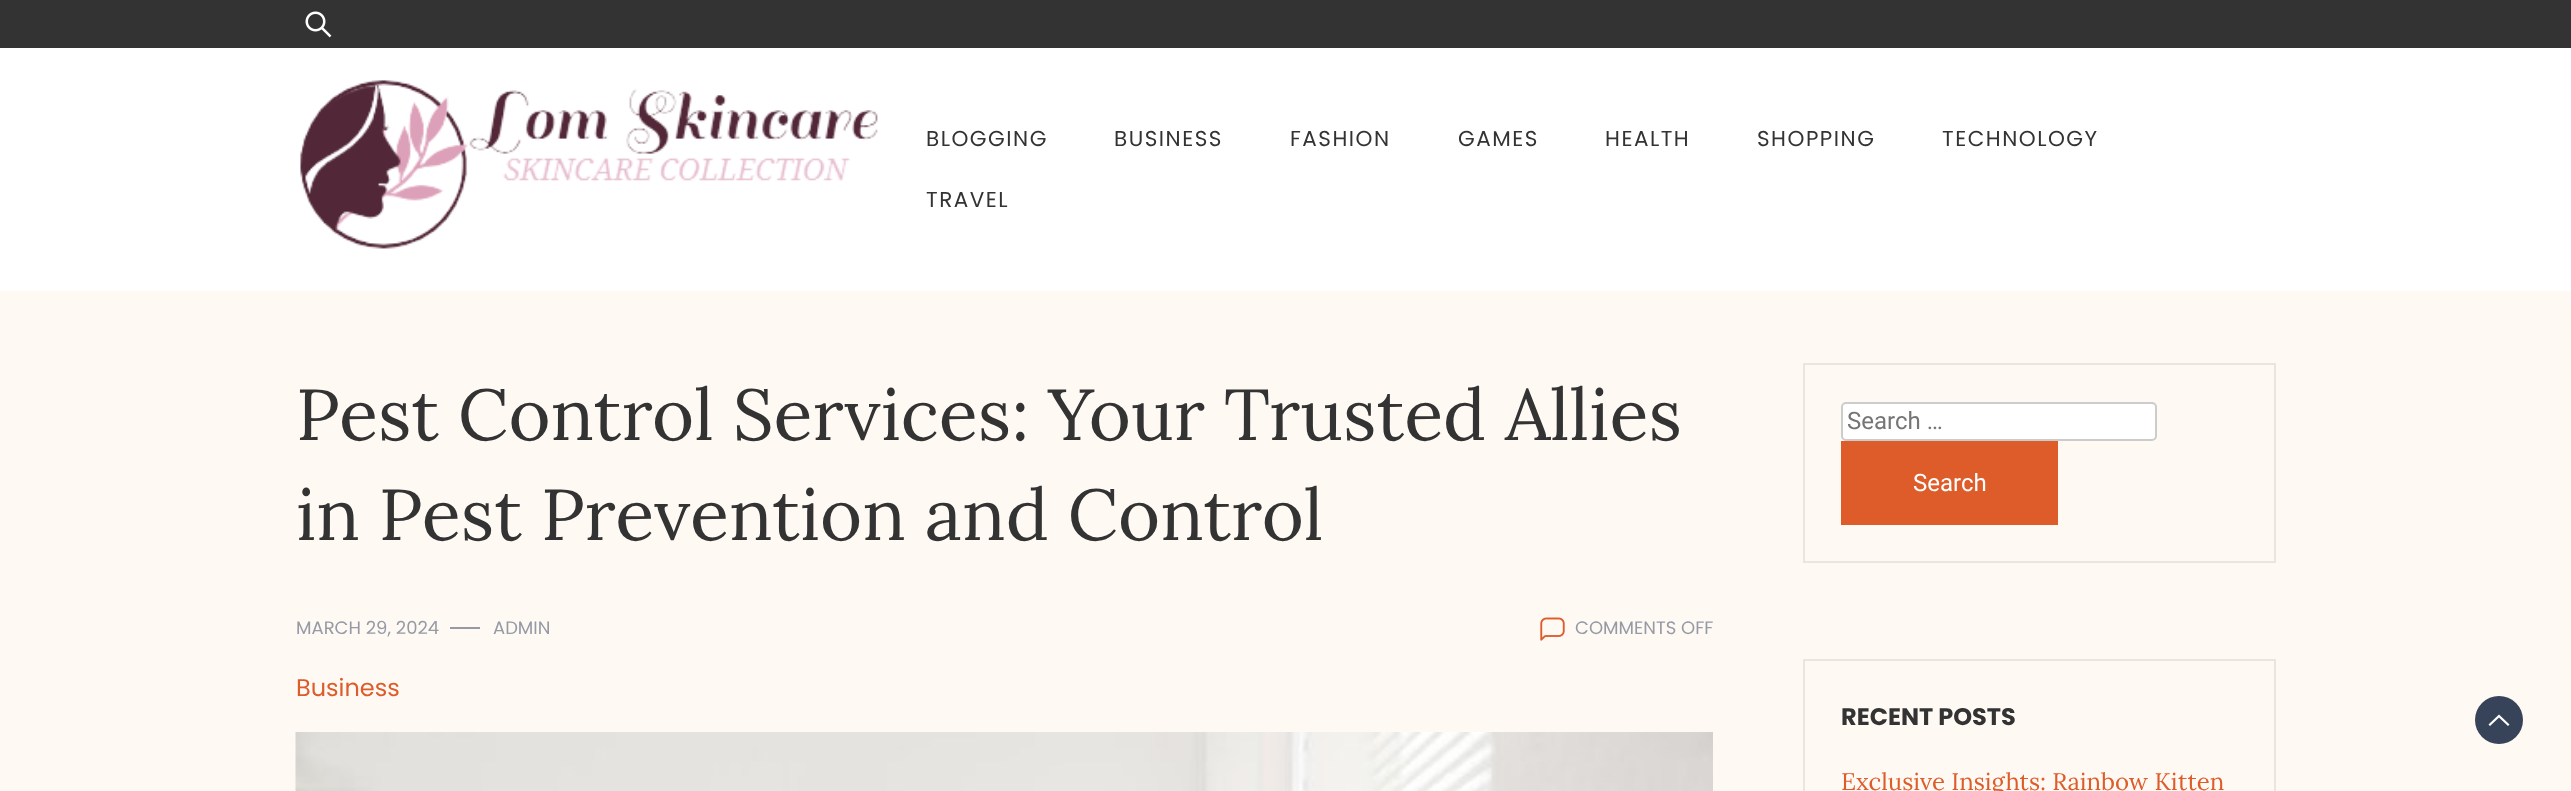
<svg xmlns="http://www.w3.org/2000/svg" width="2571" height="791">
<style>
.a{font:21.5px Poppins;letter-spacing:1.5px;fill:#333}
.b{font:72px Lora;fill:#333}
.c{font:18px Poppins;fill:#969aa5}
.d{font:24px Poppins;fill:#dd5c2a}
.e{font:24px Roboto;fill:#757575}
.f{font:24px Roboto;fill:#fff}
.g{font:bold 24px Poppins;fill:#333}
.h{font:24px Lora;fill:#dd5c2a}
</style>
<rect width="100%" height="100%" fill="#fff9f4"/>
<path fill="#fff" d="M0 48h2571v243H0z"/>
<path fill="#333" d="M0 0h2571v48H0z"/>
<image href="1.png" x="305" y="11" width="27" height="27"/>
<image href="2.png" x="300" y="80" width="578" height="169"/>
<path fill="#969aa5" d="M450 627h30v2H450z"/>
<image href="3.png" x="1540" y="617" width="25" height="24"/>
<image href="4.png" x="295" y="732" width="1418" height="59"/>
<path fill="none" stroke="#ebe5e0" stroke-width="2" d="M1804 364h471v198H1804z"/>
<rect fill="#fff" stroke="#ccc" stroke-width="2" x="1842" y="403" width="314" height="37" rx="4"/>
<path fill="#dd5c2a" d="M1841 441h217v84H1841z"/>
<path fill="none" stroke="#ebe5e0" stroke-width="2" d="M1804 660h471v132H1804z"/>
<circle fill="#374359" cx="2499" cy="720" r="24"/>
<path fill="#fff" d="M2509.5 724.5l-1.5 1.5l-9-8.5l-9 8.5l-1.5-1.5l10.5-10l10.5 10"/>
<text class="a" x="926" y="146">BLOGGING</text>
<text class="a" x="1114" y="146">BUSINESS</text>
<text class="a" x="1290" y="146">FASHION</text>
<text class="a" x="1458" y="146">GAMES</text>
<text class="a" x="1605" y="146">HEALTH</text>
<text class="a" x="1757" y="146">SHOPPING</text>
<text class="a" x="1942" y="146">TECHNOLOGY</text>
<text class="a" x="926" y="207">TRAVEL</text>
<text class="b" x="296" y="440">Pest Control Services: Your Trusted Allies</text>
<text class="b" x="296" y="540">in Pest Prevention and Control</text>
<text class="c" x="296" y="634">MARCH 29, 2024</text>
<text class="c" x="493" y="634">ADMIN</text>
<text class="c" x="1575" y="634">COMMENTS OFF</text>
<text class="d" x="296" y="696">Business</text>
<text class="e" x="1847" y="429">Search …</text>
<text class="f" x="1913" y="491">Search</text>
<text class="g" x="1841" y="725">RECENT POSTS</text>
<text class="h" x="1841" y="790">Exclusive Insights: Rainbow Kitten</text>
</svg>
